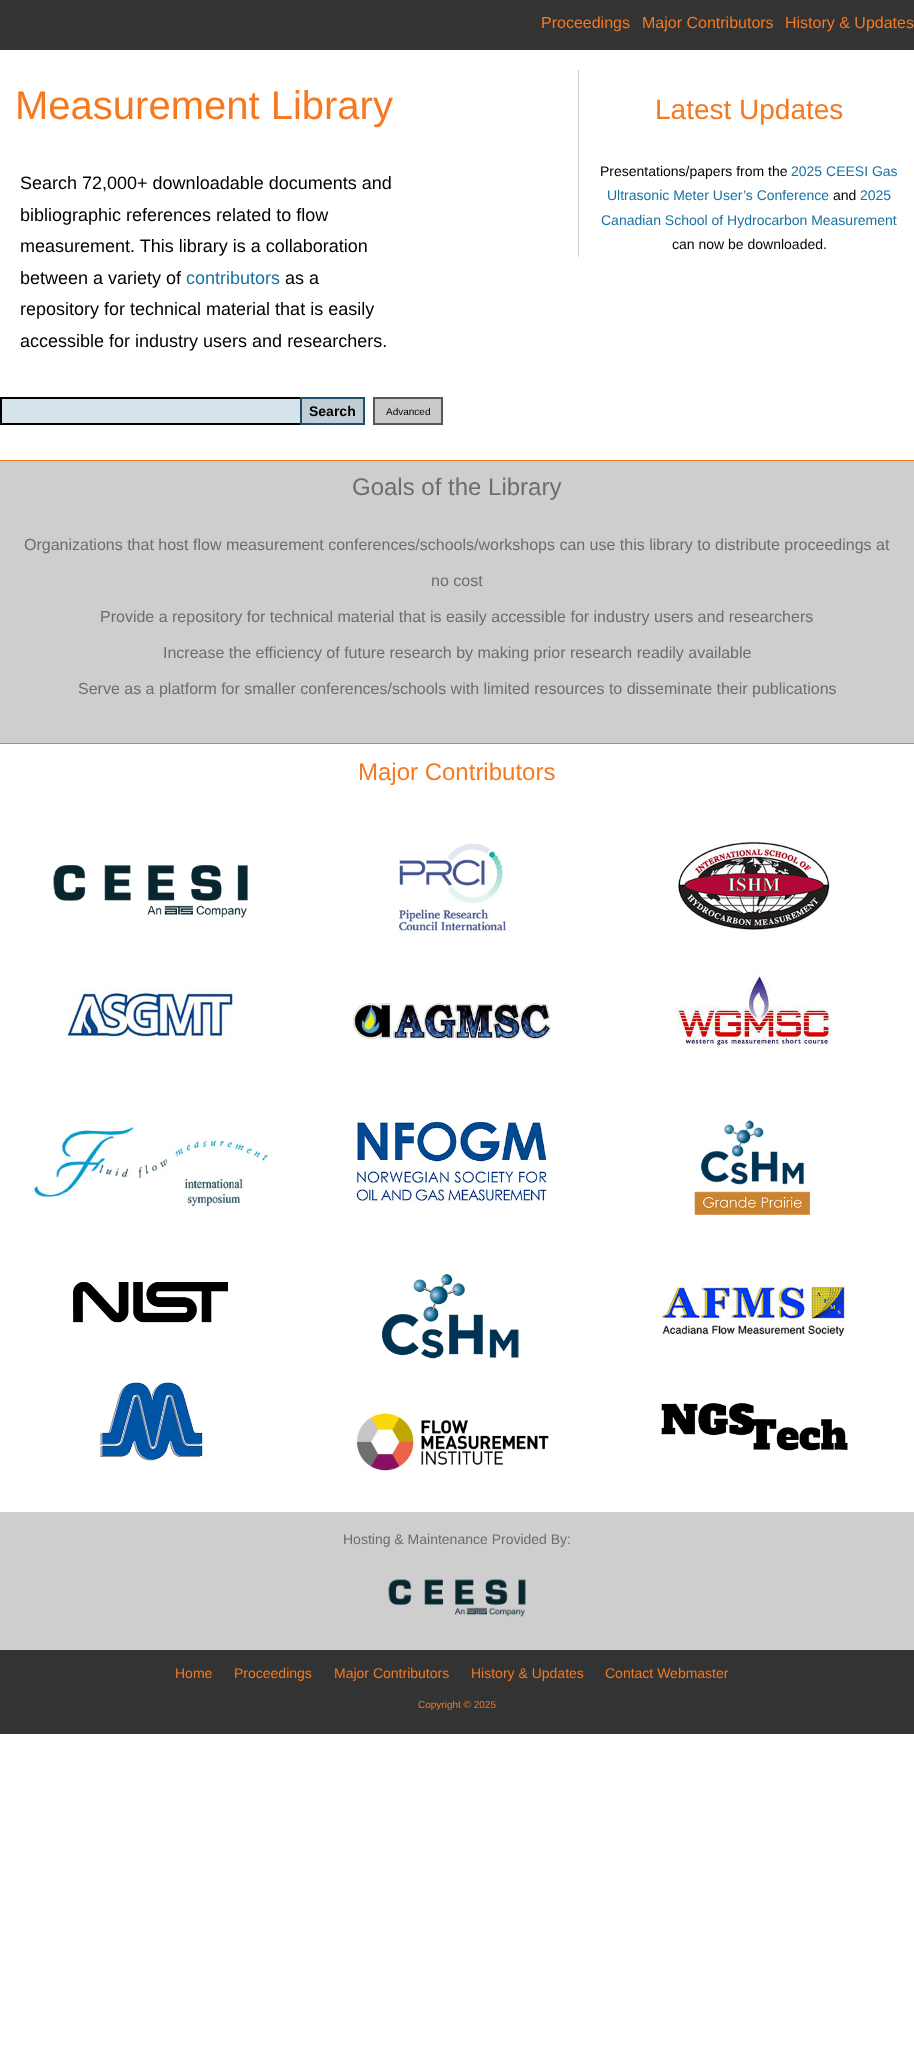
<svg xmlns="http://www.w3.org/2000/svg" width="914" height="2045">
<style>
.a{font:16px Liberation Sans;fill:#f47920}
.b{font:40px Liberation Sans;fill:#f47920}
.c{font:18px Liberation Sans;fill:#000}
.d{font:18px Liberation Sans;fill:#1772a3}
.e{font:28px Liberation Sans;fill:#f47920}
.f{font:14px Liberation Sans;fill:#000}
.g{font:14px Liberation Sans;fill:#1772a3}
.h{font:bold 14px Liberation Sans;fill:#000}
.i{font:10px Liberation Sans;fill:#000}
.j{font:24px Liberation Sans;fill:#6d6d6d}
.k{font:16px Liberation Sans;fill:#6d6d6d}
.l{font:24px Liberation Sans;fill:#f47920}
.m{font:14px Liberation Sans;fill:#6d6d6d}
.n{font:14px Liberation Sans;fill:#f47920}
.o{font:10px Liberation Sans;fill:#f47920}
</style>
<rect width="100%" height="100%" fill="#fff"/>
<path fill="#333" d="M0 0h914v50H0z"/>
<path fill="#d3d3d3" d="M578 70h1v187H578z"/>
<path fill="#d6e3ea" d="M2 399h298v24H2z"/>
<path fill="#000" d="M0 397h300v2H0z"/>
<path fill="#000" d="M0 423h300v2H0z"/>
<path fill="#000" d="M0 397h2v28H0z"/>
<path fill="#c1ced5" stroke="#1b506b" stroke-width="2" d="M301 398h63v26H301z"/>
<path fill="#cacaca" stroke="#575757" stroke-width="2" d="M374 398h68v26H374z"/>
<path fill="#cecece" d="M0 461h914v282H0z"/>
<path fill="#f47920" d="M0 460h914v1H0z"/>
<path fill="#f47920" d="M0 743h914v1H0z"/>
<image href="1.png" x="53" y="865" width="195" height="53"/>
<image href="2.png" x="399" y="843" width="107" height="90"/>
<image href="3.png" x="678" y="841" width="152" height="89"/>
<image href="4.png" x="65" y="988" width="170" height="52"/>
<image href="5.png" x="353" y="1003" width="198" height="38"/>
<image href="6.png" x="677" y="973" width="154" height="74"/>
<image href="7.png" x="29" y="1126" width="244" height="82"/>
<image href="8.png" x="356" y="1121" width="192" height="83"/>
<image href="9.png" x="694" y="1120" width="117" height="95"/>
<image href="10.png" x="73" y="1281" width="155" height="42"/>
<image href="11.png" x="382" y="1274" width="137" height="85"/>
<image href="12.png" x="660" y="1283" width="185" height="54"/>
<image href="13.png" x="99" y="1382" width="107" height="80"/>
<image href="14.png" x="356" y="1413" width="193" height="58"/>
<image href="15.png" x="661" y="1403" width="188" height="48"/>
<path fill="#cecece" d="M0 1512h914v138H0z"/>
<image href="16.png" x="388" y="1579" width="138" height="38"/>
<path fill="#333" d="M0 1650h914v84H0z"/>
<text class="a" x="541" y="28">Proceedings</text>
<text class="a" x="642" y="28">Major Contributors</text>
<text class="a" x="785" y="28">History &amp; Updates</text>
<text class="b" x="15" y="119">Measurement Library</text>
<text class="c" x="20" y="189">Search 72,000+ downloadable documents and</text>
<text class="c" x="20" y="221">bibliographic references related to flow</text>
<text class="c" x="20" y="252">measurement. This library is a collaboration</text>
<text class="c" x="20" y="284">between a variety of</text>
<text class="d" x="186" y="284">contributors</text>
<text class="c" x="285" y="284">as a</text>
<text class="c" x="20" y="315">repository for technical material that is easily</text>
<text class="c" x="20" y="347">accessible for industry users and researchers.</text>
<text class="e" x="655" y="119">Latest Updates</text>
<text class="f" x="600" y="176">Presentations/papers from the</text>
<text class="g" x="791" y="176">2025 CEESI Gas</text>
<text class="g" x="607" y="200">Ultrasonic Meter User’s Conference</text>
<text class="f" x="833" y="200">and</text>
<text class="g" x="860" y="200">2025</text>
<text class="g" x="601" y="225">Canadian School of Hydrocarbon Measurement</text>
<text class="f" x="672" y="249">can now be downloaded.</text>
<text class="h" x="309" y="416">Search</text>
<text class="i" x="386" y="415">Advanced</text>
<text class="j" x="352" y="495">Goals of the Library</text>
<text class="k" x="24" y="550">Organizations that host flow measurement conferences/schools/workshops can use this library to distribute proceedings at</text>
<text class="k" x="431" y="586">no cost</text>
<text class="k" x="100" y="622">Provide a repository for technical material that is easily accessible for industry users and researchers</text>
<text class="k" x="163" y="658">Increase the efficiency of future research by making prior research readily available</text>
<text class="k" x="78" y="694">Serve as a platform for smaller conferences/schools with limited resources to disseminate their publications</text>
<text class="l" x="358" y="780">Major Contributors</text>
<text class="m" x="343" y="1544">Hosting &amp; Maintenance Provided By:</text>
<text class="n" x="175" y="1678">Home</text>
<text class="n" x="234" y="1678">Proceedings</text>
<text class="n" x="334" y="1678">Major Contributors</text>
<text class="n" x="471" y="1678">History &amp; Updates</text>
<text class="n" x="605" y="1678">Contact Webmaster</text>
<text class="o" x="418" y="1708">Copyright © 2025</text>
</svg>
